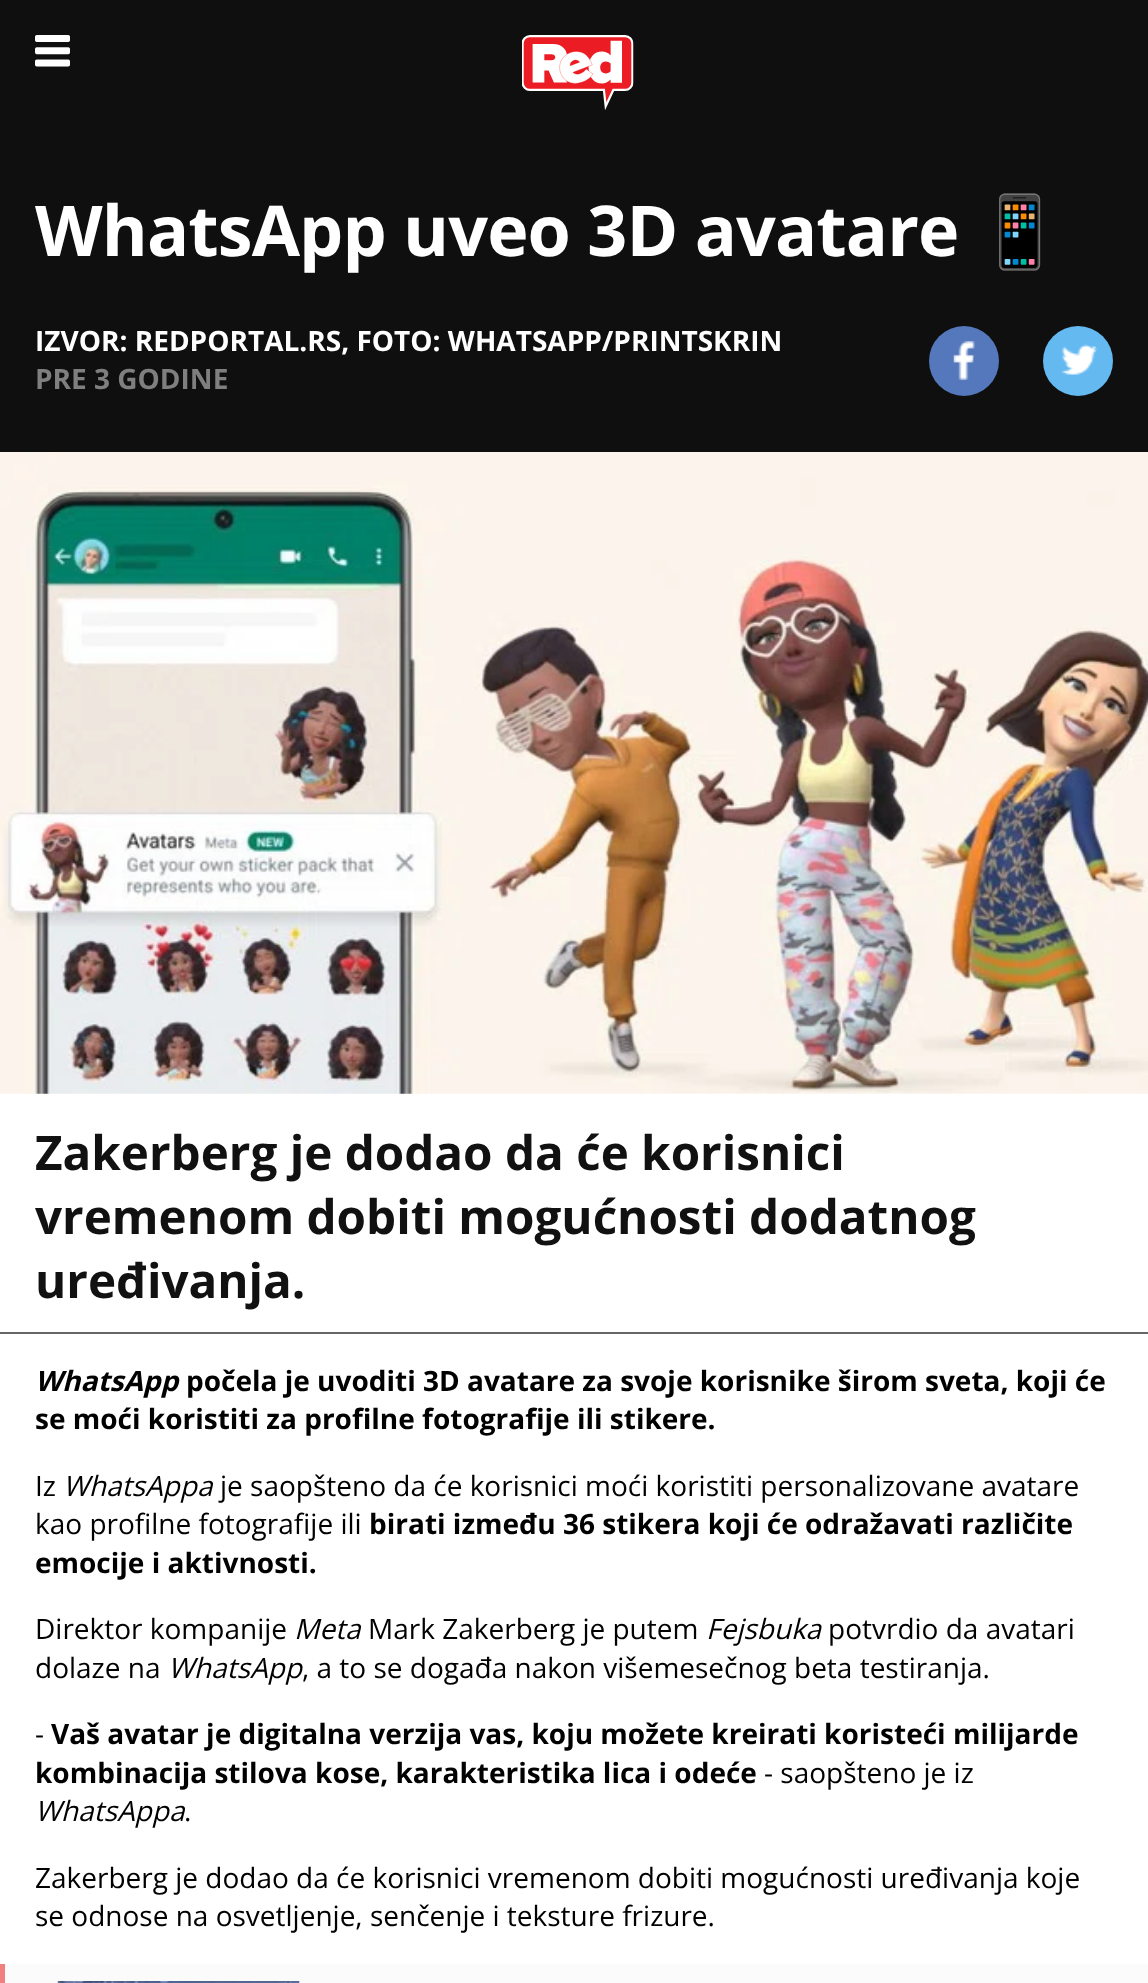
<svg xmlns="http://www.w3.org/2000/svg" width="1148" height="1983">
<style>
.a{font:bold 70px Open Sans;letter-spacing:-0.9px;fill:#fff}
.b{font:bold 70px Noto Color Emoji;letter-spacing:-0.9px;fill:#fff}
.c{font:bold 28px Open Sans;fill:#fff}
.d{font:bold 28px Open Sans;fill:#7f7f7f}
.e{font:bold 47.6px Open Sans;fill:#111}
.f{font:italic bold 28px Open Sans;fill:#000}
.g{font:bold 28px Open Sans;fill:#000}
.h{font:28px Open Sans;fill:#000}
.i{font:italic 28px Open Sans;fill:#000}
</style>
<rect width="100%" height="100%" fill="#fff"/>
<path fill="#0f0f0f" d="M0 0h1148v452H0z"/>
<image href="1.png" x="35" y="35" width="35" height="32"/>
<image href="2.png" x="522" y="35" width="112" height="75"/>
<circle fill="#5478bb" cx="964" cy="361" r="35"/>
<image href="3.png" x="953" y="341" width="22" height="39"/>
<circle fill="#64b9f1" cx="1078" cy="361" r="35"/>
<image href="4.png" x="1061" y="344" width="37" height="31"/>
<image href="5.png" x="0" y="452" width="1148" height="642"/>
<path fill="#666" d="M0 1332h1148v2H0z"/>
<path fill="#fbfbfb" d="M5 1964h1143v19H5z"/>
<path fill="#f08080" d="M0 1964h5v19H0z"/>
<image href="6.png" x="57" y="1981" width="243" height="2"/>
<text class="a" x="35" y="256">WhatsApp uveo 3D avatare</text>
<text class="b" x="976" y="256">📱</text>
<text class="c" x="35" y="351">IZVOR: REDPORTAL.RS, FOTO: WHATSAPP/PRINTSKRIN</text>
<text class="d" x="35" y="389">PRE 3 GODINE</text>
<text class="e" x="35" y="1170">Zakerberg je dodao da će korisnici</text>
<text class="e" x="35" y="1234">vremenom dobiti mogućnosti dodatnog</text>
<text class="e" x="35" y="1298">uređivanja.</text>
<text class="f" x="35" y="1391">WhatsApp</text>
<text class="g" x="186" y="1391">počela je uvoditi 3D avatare za svoje korisnike širom sveta, koji će</text>
<text class="g" x="35" y="1429">se moći koristiti za profilne fotografije ili stikere.</text>
<text class="h" x="35" y="1496">Iz</text>
<text class="i" x="63" y="1496">WhatsAppa</text>
<text class="h" x="220" y="1496">je saopšteno da će korisnici moći koristiti personalizovane avatare</text>
<text class="h" x="35" y="1534">kao profilne fotografije ili</text>
<text class="g" x="369" y="1534">birati između 36 stikera koji će odražavati različite</text>
<text class="g" x="35" y="1573">emocije i aktivnosti.</text>
<text class="h" x="35" y="1639">Direktor kompanije</text>
<text class="i" x="294" y="1639">Meta</text>
<text class="h" x="368" y="1639">Mark Zakerberg je putem</text>
<text class="i" x="706" y="1639">Fejsbuka</text>
<text class="h" x="828" y="1639">potvrdio da avatari</text>
<text class="h" x="35" y="1678">dolaze na</text>
<text class="i" x="168" y="1678">WhatsApp</text>
<text class="h" x="302" y="1678">, a to se događa nakon višemesečnog beta testiranja.</text>
<text class="h" x="35" y="1744">-</text>
<text class="g" x="51" y="1744">Vaš avatar je digitalna verzija vas, koju možete kreirati koristeći milijarde</text>
<text class="g" x="35" y="1783">kombinacija stilova kose, karakteristika lica i odeće</text>
<text class="h" x="764" y="1783">- saopšteno je iz</text>
<text class="i" x="35" y="1821">WhatsAppa</text>
<text class="h" x="184" y="1821">.</text>
<text class="h" x="35" y="1888">Zakerberg je dodao da će korisnici vremenom dobiti mogućnosti uređivanja koje</text>
<text class="h" x="35" y="1926">se odnose na osvetljenje, senčenje i teksture frizure.</text>
</svg>
